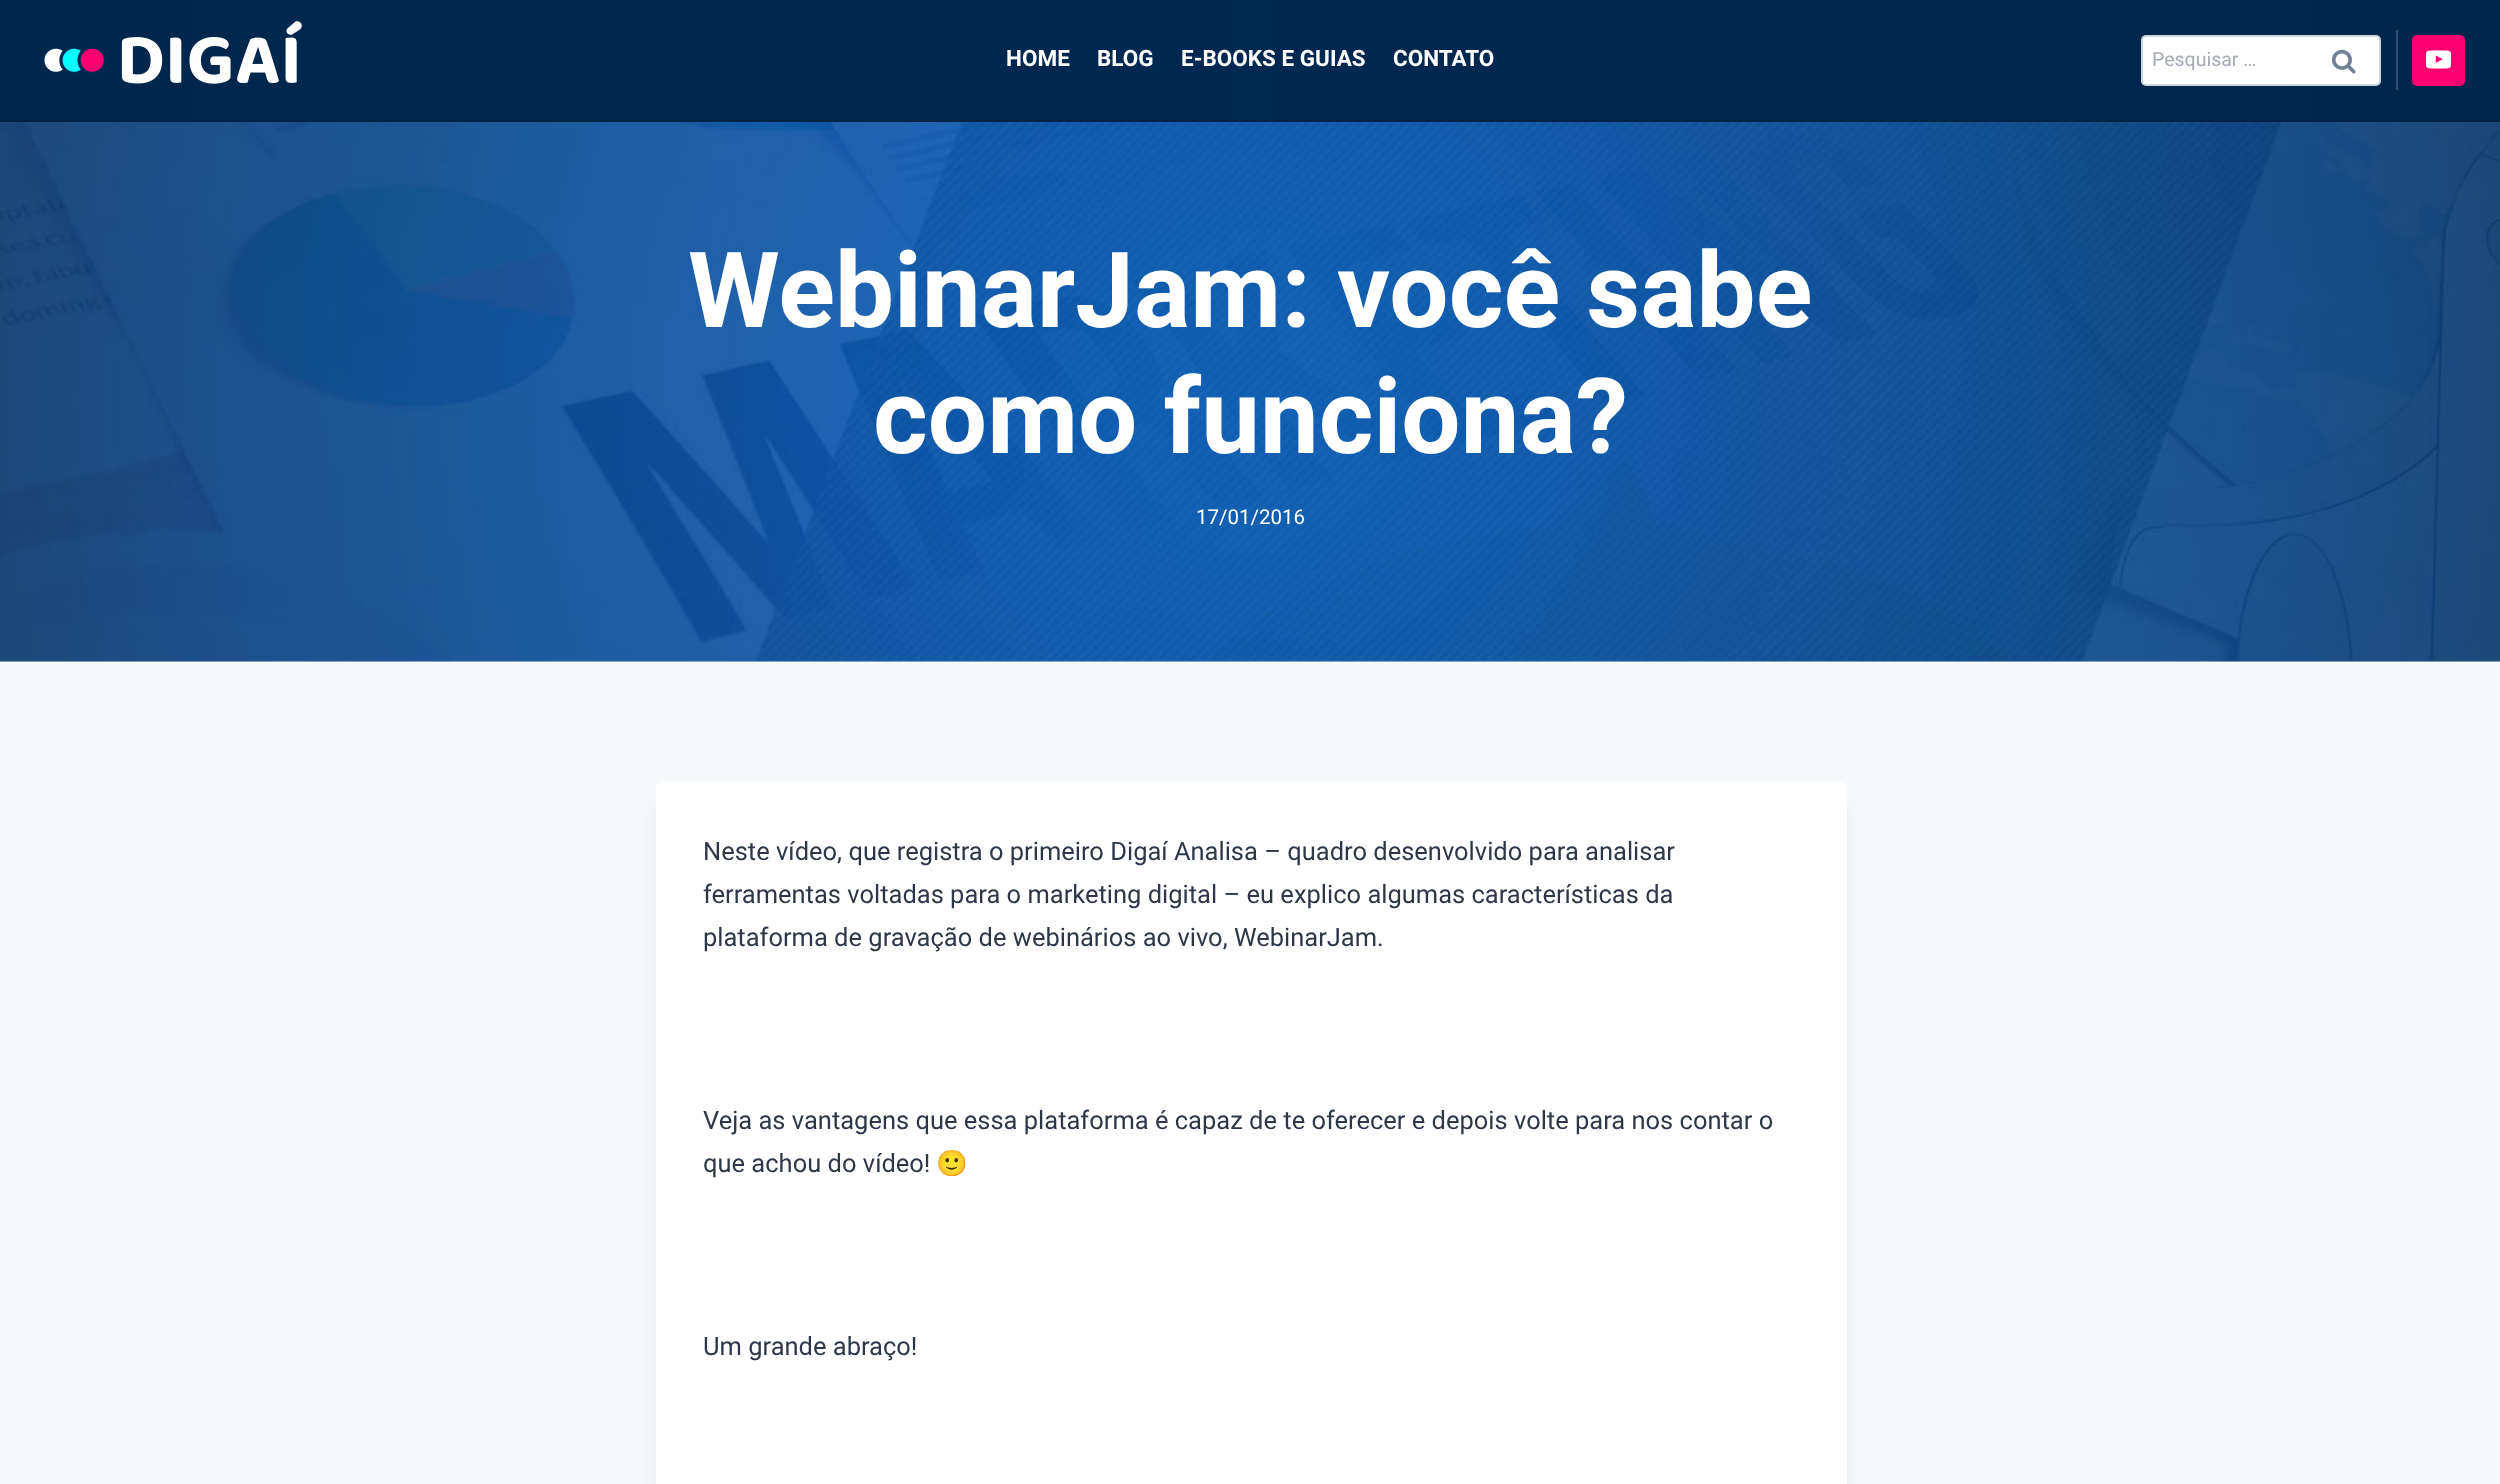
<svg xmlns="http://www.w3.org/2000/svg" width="2500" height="1484">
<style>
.a{font:bold 22.5px Roboto;fill:#fff}
.b{font:19.5px Roboto;fill:#a5aab4}
.c{font:bold 105px Roboto;fill:#fff}
.d{font:20.5px Roboto;fill:#fff}
.e{font:25.5px Roboto;fill:#2d3748}
.f{font:25.5px Noto Color Emoji;fill:#2d3748}
</style>
<defs>
<linearGradient id="g1" gradientUnits="userSpaceOnUse" x1="0" y1="60" x2="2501" y2="60"><stop offset="0" stop-color="#00264c"/><stop offset="0.5" stop-color="#002850"/><stop offset="1" stop-color="#00264c"/></linearGradient>
</defs>
<rect width="100%" height="100%" fill="#f7fafc"/>
<path fill="url(#g1)" d="M0 0h2500v122H0z"/>
<path fill="#0000001a" d="M0 120h2500v2H0z"/>
<image href="1.png" x="44" y="21" width="258" height="63"/>
<rect fill="#fff" stroke="#cbd5e0" stroke-width="2" x="2142" y="36" width="238" height="49" rx="4"/>
<image href="2.png" x="2331" y="49" width="25" height="25"/>
<path fill="#335170" d="M2396 30h2v60H2396z"/>
<rect fill="#ff0073" x="2412" y="35" width="53" height="51" rx="5"/>
<image href="3.png" x="2426" y="50" width="25" height="19"/>
<path fill="#edf2f7" d="M0 661h2500v1H0z"/>
<image href="4.png" x="0" y="122" width="2500" height="540"/>
<rect fill="#0000000d" filter="blur(11px)" x="656" y="804" width="1191" height="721" rx="8"/>
<rect fill="#fff" x="656" y="782" width="1191" height="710" rx="8"/>
<text class="a" x="1006" y="66">HOME</text>
<text class="a" x="1097" y="66">BLOG</text>
<text class="a" x="1181" y="66">E-BOOKS E GUIAS</text>
<text class="a" x="1393" y="66">CONTATO</text>
<text class="b" x="2152" y="66">Pesquisar …</text>
<text class="c" x="688" y="327">WebinarJam: você sabe</text>
<text class="c" x="873" y="453">como funciona?</text>
<text class="d" x="1196" y="524">17/01/2016</text>
<text class="e" x="703" y="860">Neste vídeo, que registra o primeiro Digaí Analisa – quadro desenvolvido para analisar</text>
<text class="e" x="703" y="903">ferramentas voltadas para o marketing digital – eu explico algumas características da</text>
<text class="e" x="703" y="946">plataforma de gravação de webinários ao vivo, WebinarJam.</text>
<text class="e" x="703" y="1129">Veja as vantagens que essa plataforma é capaz de te oferecer e depois volte para nos contar o</text>
<text class="e" x="703" y="1172">que achou do vídeo!</text>
<text class="f" x="936" y="1172">🙂</text>
<text class="e" x="703" y="1355">Um grande abraço!</text>
</svg>
